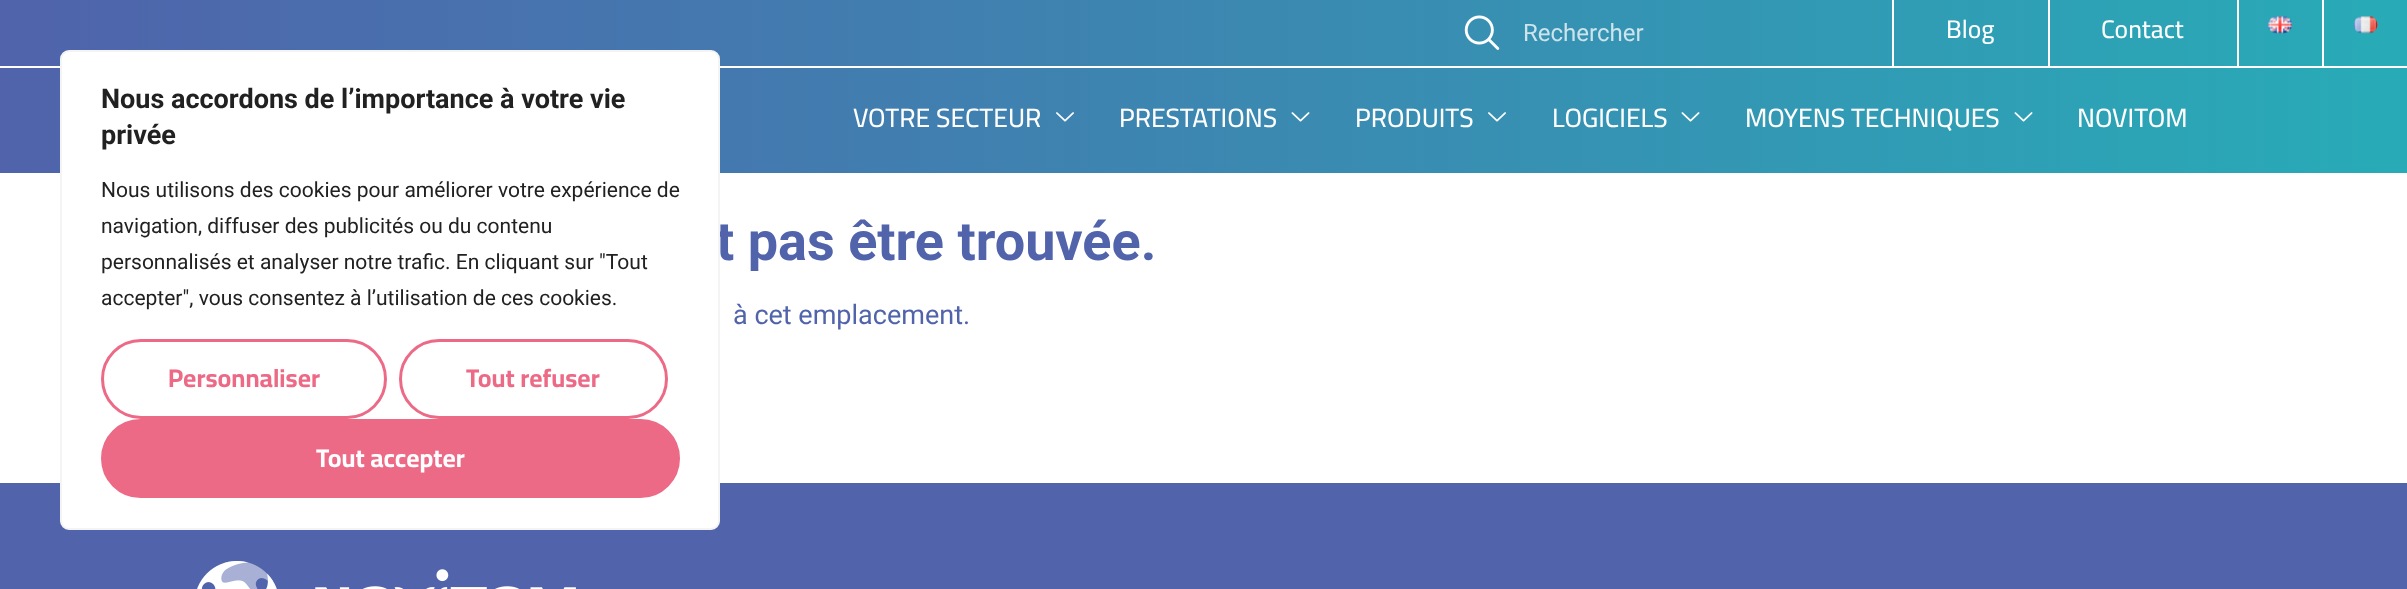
<svg xmlns="http://www.w3.org/2000/svg" width="2407" height="589">
<style>
.a{font:24px Roboto;fill:#cde4ec}
.b{font:500 25.5px Cairo;fill:#fff}
.c{font:500 26.5px Cairo;fill:#fff}
.d{font:bold 54px Roboto;fill:#5063ab}
.e{font:bold 25.5px Cairo;fill:#fff}
.f{font:bold 25.5px Cairo;fill:#ed6a87}
.g{font:21px Roboto;fill:#212121}
.h{font:bold 27px Roboto;fill:#212121}
.i{font:27px Roboto;fill:#5063ab}
</style>
<defs>
<linearGradient id="g1" gradientUnits="userSpaceOnUse" x1="0" y1="86" x2="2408" y2="86"><stop offset="0" stop-color="#5063ab"/><stop offset="1" stop-color="#28abb7"/></linearGradient>
<clipPath id="clip1"><rect x="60" y="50" width="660" height="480" rx="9"/></clipPath>
</defs>
<rect width="100%" height="100%" fill="#fff"/>
<path fill="url(#g1)" d="M0 0h2407v173H0z"/>
<path fill="#fff" d="M0 66h2407v2H0z"/>
<image href="1.png" x="1464" y="15" width="36" height="35"/>
<path fill="#fff" d="M2048 0h2v66H2048z"/>
<path fill="#fff" d="M1892 0h2v66H1892z"/>
<path fill="#fff" d="M2237 0h2v66H2237z"/>
<image href="2.png" x="2268" y="16" width="24" height="18"/>
<path fill="#fff" d="M2322 0h2v66H2322z"/>
<image href="3.png" x="2353" y="16" width="25" height="18"/>
<image href="4.png" x="1056" y="112" width="18" height="10"/>
<image href="5.png" x="1291" y="112" width="19" height="10"/>
<image href="6.png" x="1488" y="112" width="18" height="10"/>
<image href="7.png" x="1681" y="112" width="19" height="10"/>
<image href="8.png" x="2014" y="112" width="19" height="10"/>
<path fill="#5063ab" d="M0 483h2407v106H0z"/>
<g clip-path="url(#clip1)">
<rect fill="#acabab4d" filter="blur(7.5px)" x="60" y="48" width="660" height="480" rx="9"/>
</g>
<image href="9.png" x="197" y="561" width="379" height="28"/>
<text class="a" x="1523" y="41">Rechercher</text>
<text class="b" x="1946" y="38">Blog</text>
<text class="b" x="2101" y="38">Contact</text>
<text class="c" x="853" y="127">VOTRE SECTEUR</text>
<text class="c" x="1119" y="127">PRESTATIONS</text>
<text class="c" x="1355" y="127">PRODUITS</text>
<text class="c" x="1552" y="127">LOGICIELS</text>
<text class="c" x="1745" y="127">MOYENS TECHNIQUES</text>
<text class="c" x="2077" y="127">NOVITOM</text>
<text class="d" x="716" y="260">t pas être trouvée.</text>
<rect fill="#fff" stroke="#f4f4f4" stroke-width="2" x="61" y="51" width="658" height="478" rx="8"/>
<rect fill="#ed6a87" stroke="#ed6a87" stroke-width="3" x="102.5" y="420.5" width="576" height="76" rx="38"/>
<text class="e" x="316" y="467">Tout accepter</text>
<rect fill="none" stroke="#ed6a87" stroke-width="3" x="400.5" y="340.5" width="266" height="77" rx="38.5"/>
<text class="f" x="466" y="387">Tout refuser</text>
<rect fill="none" stroke="#ed6a87" stroke-width="3" x="102.5" y="340.5" width="283" height="77" rx="38.5"/>
<text class="f" x="168" y="387">Personnaliser</text>
<text class="g" x="101" y="305">accepter", vous consentez à l’utilisation de ces cookies.</text>
<text class="g" x="101" y="269">personnalisés et analyser notre trafic. En cliquant sur "Tout</text>
<text class="g" x="101" y="233">navigation, diffuser des publicités ou du contenu</text>
<text class="g" x="101" y="197">Nous utilisons des cookies pour améliorer votre expérience de</text>
<text class="h" x="101" y="144">privée</text>
<text class="h" x="101" y="108">Nous accordons de l’importance à votre vie</text>
<text class="i" x="733" y="324">à cet emplacement.</text>
</svg>
